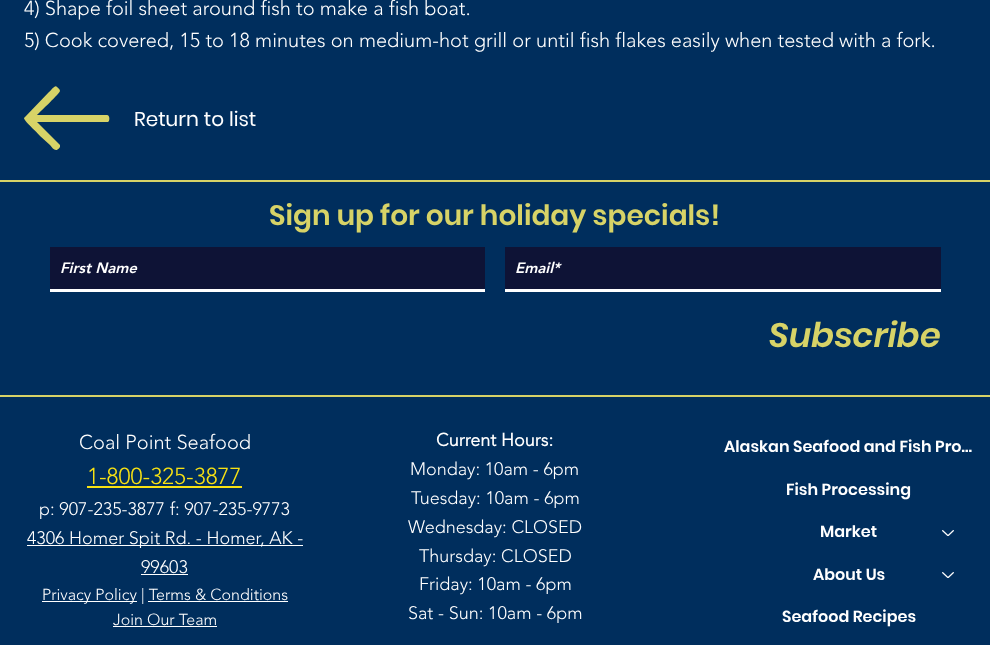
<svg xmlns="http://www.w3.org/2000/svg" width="990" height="645">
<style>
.a{font:300 20px 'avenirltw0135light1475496';fill:#fff}
.b{font:20px Poppins;fill:#fff}
.c{font:600 28px Poppins;fill:#d7d367}
.d{font:italic 900 15px 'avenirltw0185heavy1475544';fill:#fff}
.e{font:italic 600 34px Poppins;fill:#d7d367}
.f{font:300 23px 'avenirltw0135light1475496';fill:#f8e213}
.g{font:300 18px 'avenirltw0135light1475496';fill:#fff}
.h{font:300 16px 'avenirltw0135light1475496';fill:#fff}
.i{font:bold 18px 'avenirltw0135light1475496';fill:#fff}
.j{font:600 16px Poppins;fill:#fff}
</style>
<rect width="100%" height="100%" fill="#002e5d"/>
<path fill="#d7d367" d="M107 115h-70c3-3 23-22 23-24c0-2-2-3-3-4c-2-3-7 5-8 5l-24 25l-1 1c0 3 14 15 16 18l10 9c3 4 6 8 10 2v-2l-23-23h71c2-1 2-7-1-7z"/>
<path fill="#d7d367" d="M0 180h990v2H0z"/>
<path fill="#0e1336" d="M50 247h435v42H50z"/>
<path fill="#fff" d="M50 289h435v3H50z"/>
<path fill="#0e1336" d="M505 247h436v42H505z"/>
<path fill="#fff" d="M505 289h436v3H505z"/>
<path fill="#d7d367" d="M0 395h990v2H0z"/>
<path fill="#f8e213" d="M87 486h155v2H87z"/>
<path fill="#fff" d="M27 545h276v1H27z"/>
<path fill="#fff" d="M141 574h47v1H141z"/>
<path fill="#fff" d="M42 601h95v1H42z"/>
<path fill="#fff" d="M148 601h140v1H148z"/>
<path fill="#fff" d="M113 626h104v1H113z"/>
<image href="1.png" x="942" y="530" width="12" height="6"/>
<image href="1.png" x="942" y="572" width="12" height="6"/>
<text class="a" x="24" y="15">4) Shape foil sheet around fish to make a fish boat.</text>
<text class="a" x="24" y="47">5) Cook covered, 15 to 18 minutes on medium-hot grill or until fish flakes easily when tested with a fork.</text>
<text class="b" x="134" y="126">Return to list</text>
<text class="c" x="269" y="225">Sign up for our holiday specials!</text>
<text class="d" x="60" y="273">First Name</text>
<text class="d" x="515" y="273">Email*</text>
<text class="e" x="769" y="347">Subscribe</text>
<text class="a" x="79" y="449">Coal Point Seafood</text>
<text class="f" x="87" y="484">1-800-325-3877</text>
<text class="g" x="39" y="515">p: 907-235-3877 f: 907-235-9773</text>
<text class="g" x="27" y="544">4306 Homer Spit Rd. - Homer, AK -</text>
<text class="g" x="141" y="573">99603</text>
<text class="h" x="42" y="600">Privacy Policy | Terms &amp; Conditions</text>
<text class="h" x="113" y="625">Join Our Team</text>
<text class="i" x="436" y="446">Current Hours:</text>
<text class="g" x="410" y="475">Monday: 10am - 6pm</text>
<text class="g" x="411" y="504">Tuesday: 10am - 6pm</text>
<text class="g" x="408" y="533">Wednesday: CLOSED</text>
<text class="g" x="419" y="562">Thursday: CLOSED</text>
<text class="g" x="419" y="590">Friday: 10am - 6pm</text>
<text class="g" x="408" y="619">Sat - Sun: 10am - 6pm</text>
<text class="j" x="724" y="452">Alaskan Seafood and Fish Pro…</text>
<text class="j" x="786" y="495">Fish Processing</text>
<text class="j" x="820" y="537">Market</text>
<text class="j" x="813" y="580">About Us</text>
<text class="j" x="782" y="622">Seafood Recipes</text>
</svg>
